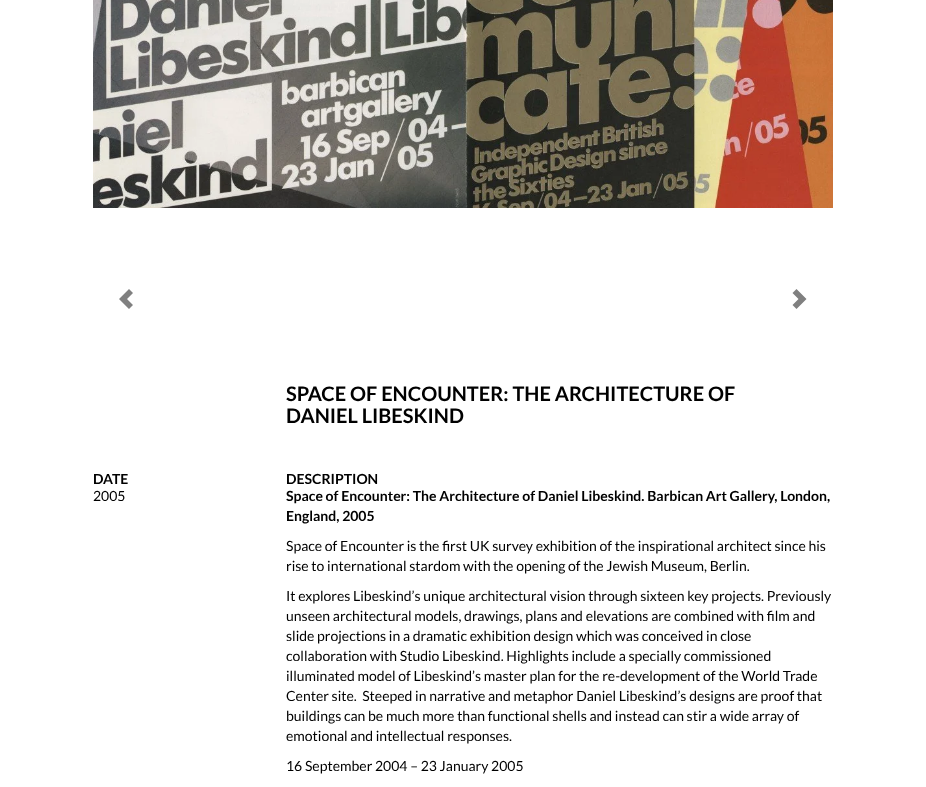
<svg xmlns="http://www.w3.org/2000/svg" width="926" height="787">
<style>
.a{font:bold 20px Lato;fill:#000}
.b{font:bold 14px Lato;fill:#000}
.c{font:14px Lato;fill:#000}
</style>
<rect width="100%" height="100%" fill="#fff"/>
<image href="1.png" x="93" y="0" width="740" height="208"/>
<path fill="#808080" d="M119 299l10 10l4-4l-6-6l6-6l-4-4z"/>
<path fill="#808080" d="M792.5 305l6-6l-6-6l4-4l10 10l-10 10z"/>
<text class="a" x="286" y="401">SPACE OF ENCOUNTER: THE ARCHITECTURE OF</text>
<text class="a" x="286" y="423">DANIEL LIBESKIND</text>
<text class="b" x="93" y="484">DATE</text>
<text class="c" x="93" y="501">2005</text>
<text class="b" x="286" y="484">DESCRIPTION</text>
<text class="b" x="286" y="501">Space of Encounter: The Architecture of Daniel Libeskind. Barbican Art Gallery, London,</text>
<text class="b" x="286" y="521">England, 2005</text>
<text class="c" x="286" y="551">Space of Encounter is the first UK survey exhibition of the inspirational architect since his</text>
<text class="c" x="286" y="571">rise to international stardom with the opening of the Jewish Museum, Berlin.</text>
<text class="c" x="286" y="601">It explores Libeskind’s unique architectural vision through sixteen key projects. Previously</text>
<text class="c" x="286" y="621">unseen architectural models, drawings, plans and elevations are combined with film and</text>
<text class="c" x="286" y="641">slide projections in a dramatic exhibition design which was conceived in close</text>
<text class="c" x="286" y="661">collaboration with Studio Libeskind. Highlights include a specially commissioned</text>
<text class="c" x="286" y="681">illuminated model of Libeskind’s master plan for the re-development of the World Trade</text>
<text class="c" xml:space="preserve" x="286" y="701">Center site.  Steeped in narrative and metaphor Daniel Libeskind’s designs are proof that</text>
<text class="c" x="286" y="721">buildings can be much more than functional shells and instead can stir a wide array of</text>
<text class="c" x="286" y="741">emotional and intellectual responses.</text>
<text class="c" x="286" y="771">16 September 2004 – 23 January 2005</text>
</svg>
